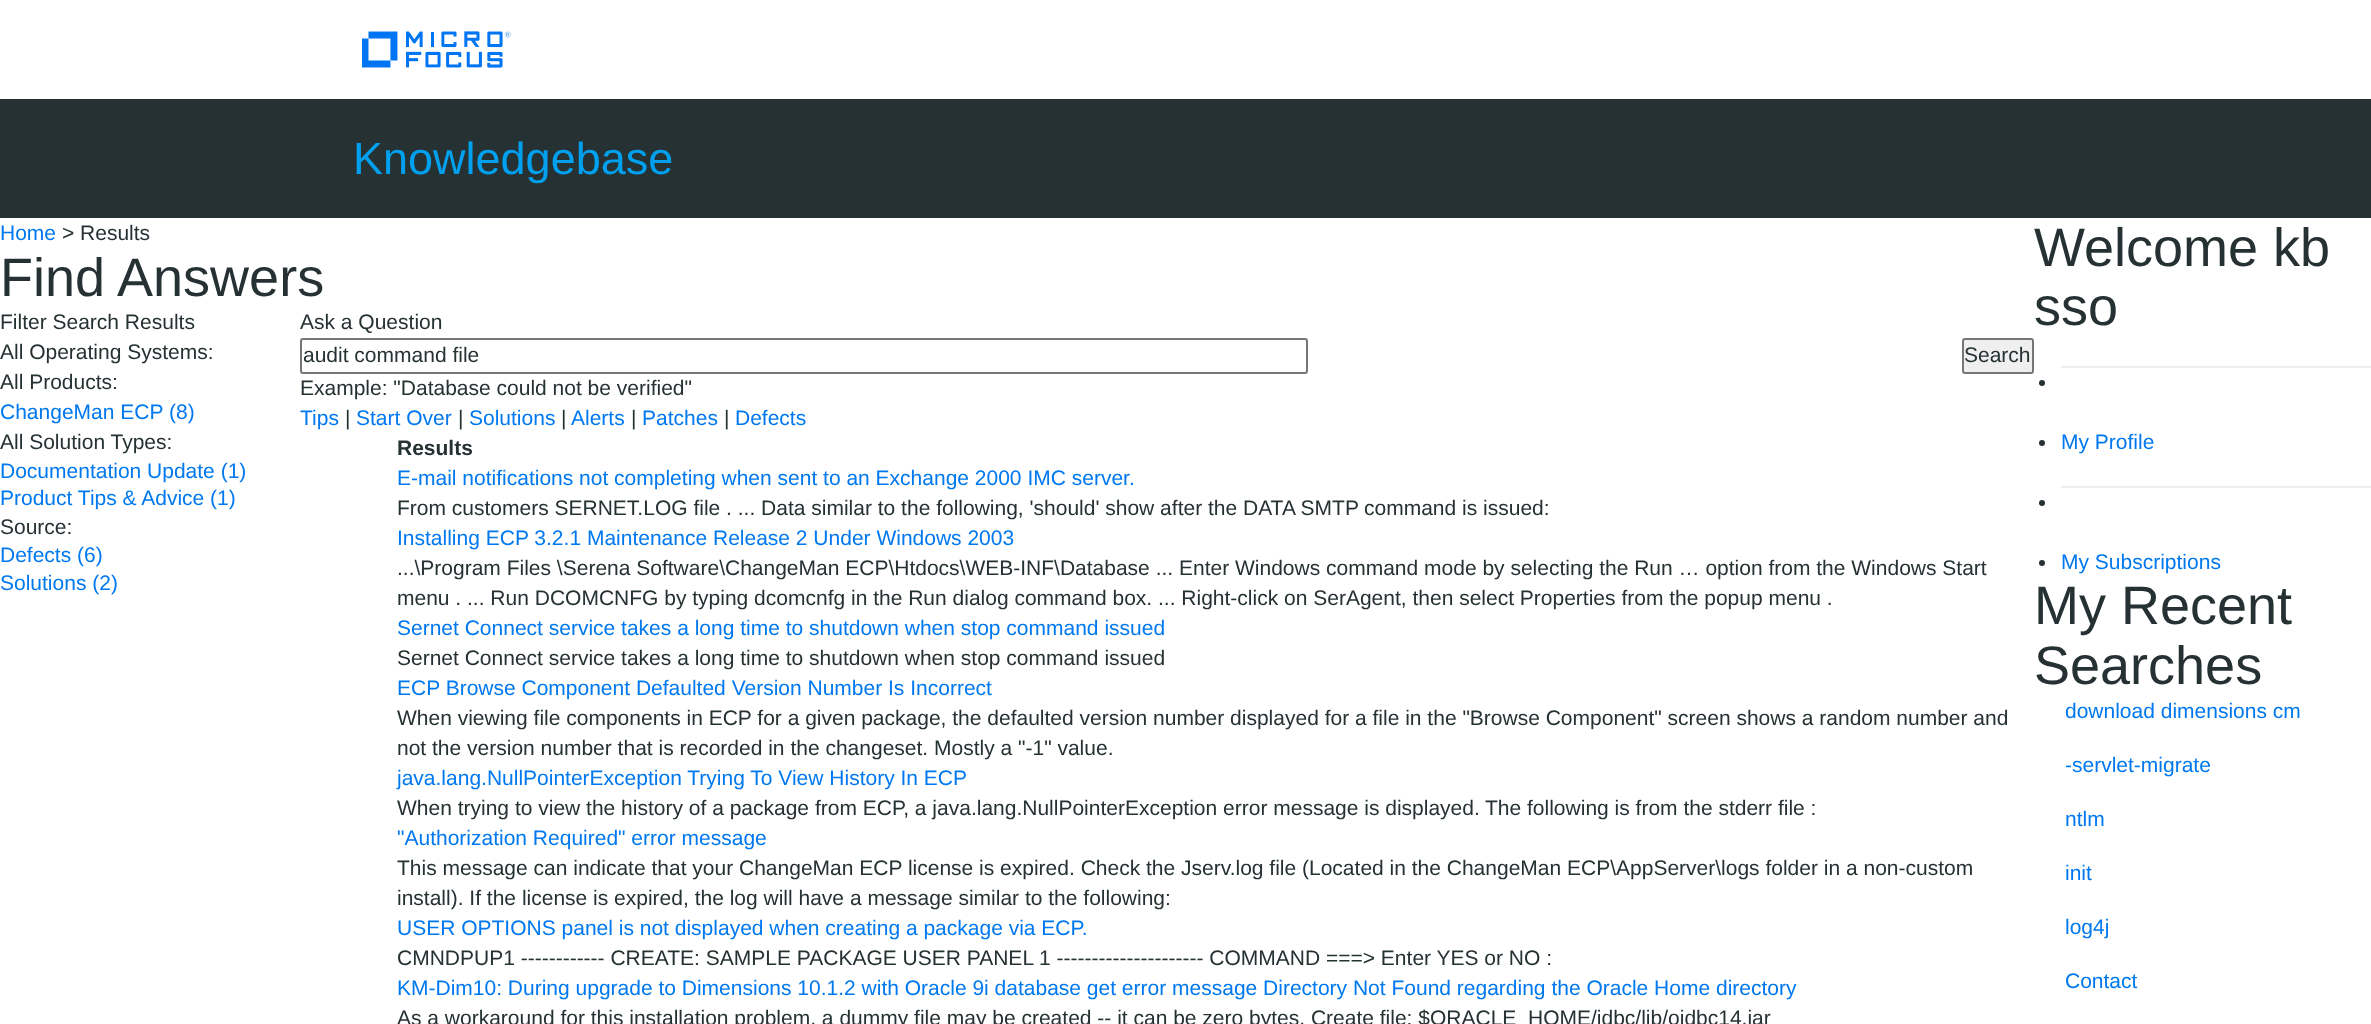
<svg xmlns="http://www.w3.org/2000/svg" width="2371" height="1024">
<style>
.a{font:45px Liberation Sans;fill:#00a0ef}
.b{font:21px Liberation Sans;fill:#0078ef}
.c{font:21px Liberation Sans;fill:#263133}
.d{font:54px Liberation Sans;fill:#263133}
.e{font:bold 21px Liberation Sans;fill:#263133}
</style>
<rect width="100%" height="100%" fill="#fff"/>
<image href="1.png" x="362" y="31" width="149" height="37"/>
<path fill="#263133" d="M0 99h2371v119H0z"/>
<rect fill="none" stroke="#767676" stroke-width="2" x="301" y="339" width="1006" height="34" rx="2"/>
<rect fill="#efefef" stroke="#767676" stroke-width="2" x="1963" y="339" width="70" height="34" rx="2"/>
<path fill="#eee" d="M2061 366h310v2H2061z"/>
<circle fill="#263133" cx="2042" cy="383" r="3"/>
<circle fill="#263133" cx="2042" cy="443" r="3"/>
<path fill="#eee" d="M2061 486h310v2H2061z"/>
<circle fill="#263133" cx="2042" cy="503" r="3"/>
<circle fill="#263133" cx="2042" cy="563" r="3"/>
<text class="a" x="353" y="174">Knowledgebase</text>
<text class="b" x="0" y="240">Home</text>
<text class="c" x="62" y="240">&gt; Results</text>
<text class="d" x="0" y="296">Find Answers</text>
<text class="c" x="0" y="329">Filter Search Results</text>
<text class="c" x="0" y="359">All Operating Systems:</text>
<text class="c" x="0" y="389">All Products:</text>
<text class="b" x="0" y="419">ChangeMan ECP</text>
<text class="b" x="169" y="419">(8)</text>
<text class="c" x="0" y="449">All Solution Types:</text>
<text class="b" x="0" y="478">Documentation Update (1)</text>
<text class="b" x="0" y="505">Product Tips &amp; Advice (1)</text>
<text class="c" x="0" y="534">Source:</text>
<text class="b" x="0" y="562">Defects (6)</text>
<text class="b" x="0" y="590">Solutions (2)</text>
<text class="c" x="300" y="329">Ask a Question</text>
<text class="c" x="303" y="362">audit command file</text>
<text class="c" x="1964" y="362">Search</text>
<text class="c" x="300" y="395">Example: "Database could not be verified"</text>
<text class="b" x="300" y="425">Tips</text>
<text class="c" x="345" y="425">|</text>
<text class="b" x="356" y="425">Start Over</text>
<text class="c" x="458" y="425">|</text>
<text class="b" x="469" y="425">Solutions</text>
<text class="c" x="561" y="425">|</text>
<text class="b" x="571" y="425">Alerts</text>
<text class="c" x="631" y="425">|</text>
<text class="b" x="642" y="425">Patches</text>
<text class="c" x="724" y="425">|</text>
<text class="b" x="735" y="425">Defects</text>
<text class="e" x="397" y="455">Results</text>
<text class="b" x="397" y="485">E-mail notifications not completing when sent to an Exchange 2000 IMC server.</text>
<text class="c" x="397" y="515">From customers SERNET.LOG file . ... Data similar to the following, 'should' show after the DATA SMTP</text>
<text class="c" x="1364" y="515">command is issued:</text>
<text class="b" x="397" y="545">Installing ECP 3.2.1 Maintenance Release 2 Under Windows 2003</text>
<text class="c" x="397" y="575">...\Program Files \Serena Software\ChangeMan ECP\Htdocs\WEB-INF\Database ... Enter Windows command mode by selecting the Run … option from the Windows Start</text>
<text class="c" x="397" y="605">menu . ... Run DCOMCNFG by typing dcomcnfg in the Run dialog command box. ... Right-click on SerAgent, then select Properties from the popup menu .</text>
<text class="b" x="397" y="635">Sernet Connect service takes a long time to shutdown when stop command issued</text>
<text class="c" x="397" y="665">Sernet Connect service takes a long time to shutdown when stop command issued</text>
<text class="b" x="397" y="695">ECP Browse Component Defaulted Version Number Is Incorrect</text>
<text class="c" x="397" y="725">When viewing file components in ECP for a given package, the defaulted version number displayed for a file in the "Browse Component" screen shows a random number and</text>
<text class="c" x="397" y="755">not the version number that is recorded in the changeset. Mostly a "-1" value.</text>
<text class="b" x="397" y="785">java.lang.NullPointerException Trying To View History In ECP</text>
<text class="c" x="397" y="815">When trying to view the history of a package from ECP, a java.lang.NullPointerException error message is displayed.</text>
<text class="c" x="1485" y="815">The following is from the stderr file :</text>
<text class="b" x="397" y="845">"Authorization Required" error message</text>
<text class="c" x="397" y="875">This message can indicate that your ChangeMan ECP license is expired. Check the Jserv.log file (Located in the ChangeMan ECP\AppServer\logs folder in a non-custom</text>
<text class="c" x="397" y="905">install). If the license is expired, the log will have a message similar to the following:</text>
<text class="b" x="397" y="935">USER OPTIONS panel is not displayed when creating a package via ECP.</text>
<text class="c" x="397" y="965">CMNDPUP1 ------------ CREATE: SAMPLE PACKAGE USER PANEL 1 --------------------- COMMAND ===&gt; Enter YES or NO :</text>
<text class="b" x="397" y="995">KM-Dim10: During upgrade to Dimensions 10.1.2 with Oracle 9i database get error message Directory Not Found regarding the Oracle Home directory</text>
<text class="c" x="397" y="1025">As a workaround for this installation problem, a dummy file may be created -- it can be zero bytes. Create file: $ORACLE_HOME/jdbc/lib/ojdbc14.jar</text>
<text class="d" x="2034" y="266">Welcome kb</text>
<text class="d" x="2034" y="325">sso</text>
<text class="b" x="2061" y="449">My Profile</text>
<text class="b" x="2061" y="569">My Subscriptions</text>
<text class="d" x="2034" y="624">My Recent</text>
<text class="d" x="2034" y="684">Searches</text>
<text class="b" x="2065" y="718">download dimensions cm</text>
<text class="b" x="2065" y="772">-servlet-migrate</text>
<text class="b" x="2065" y="826">ntlm</text>
<text class="b" x="2065" y="880">init</text>
<text class="b" x="2065" y="934">log4j</text>
<text class="b" x="2065" y="988">Contact</text>
</svg>
